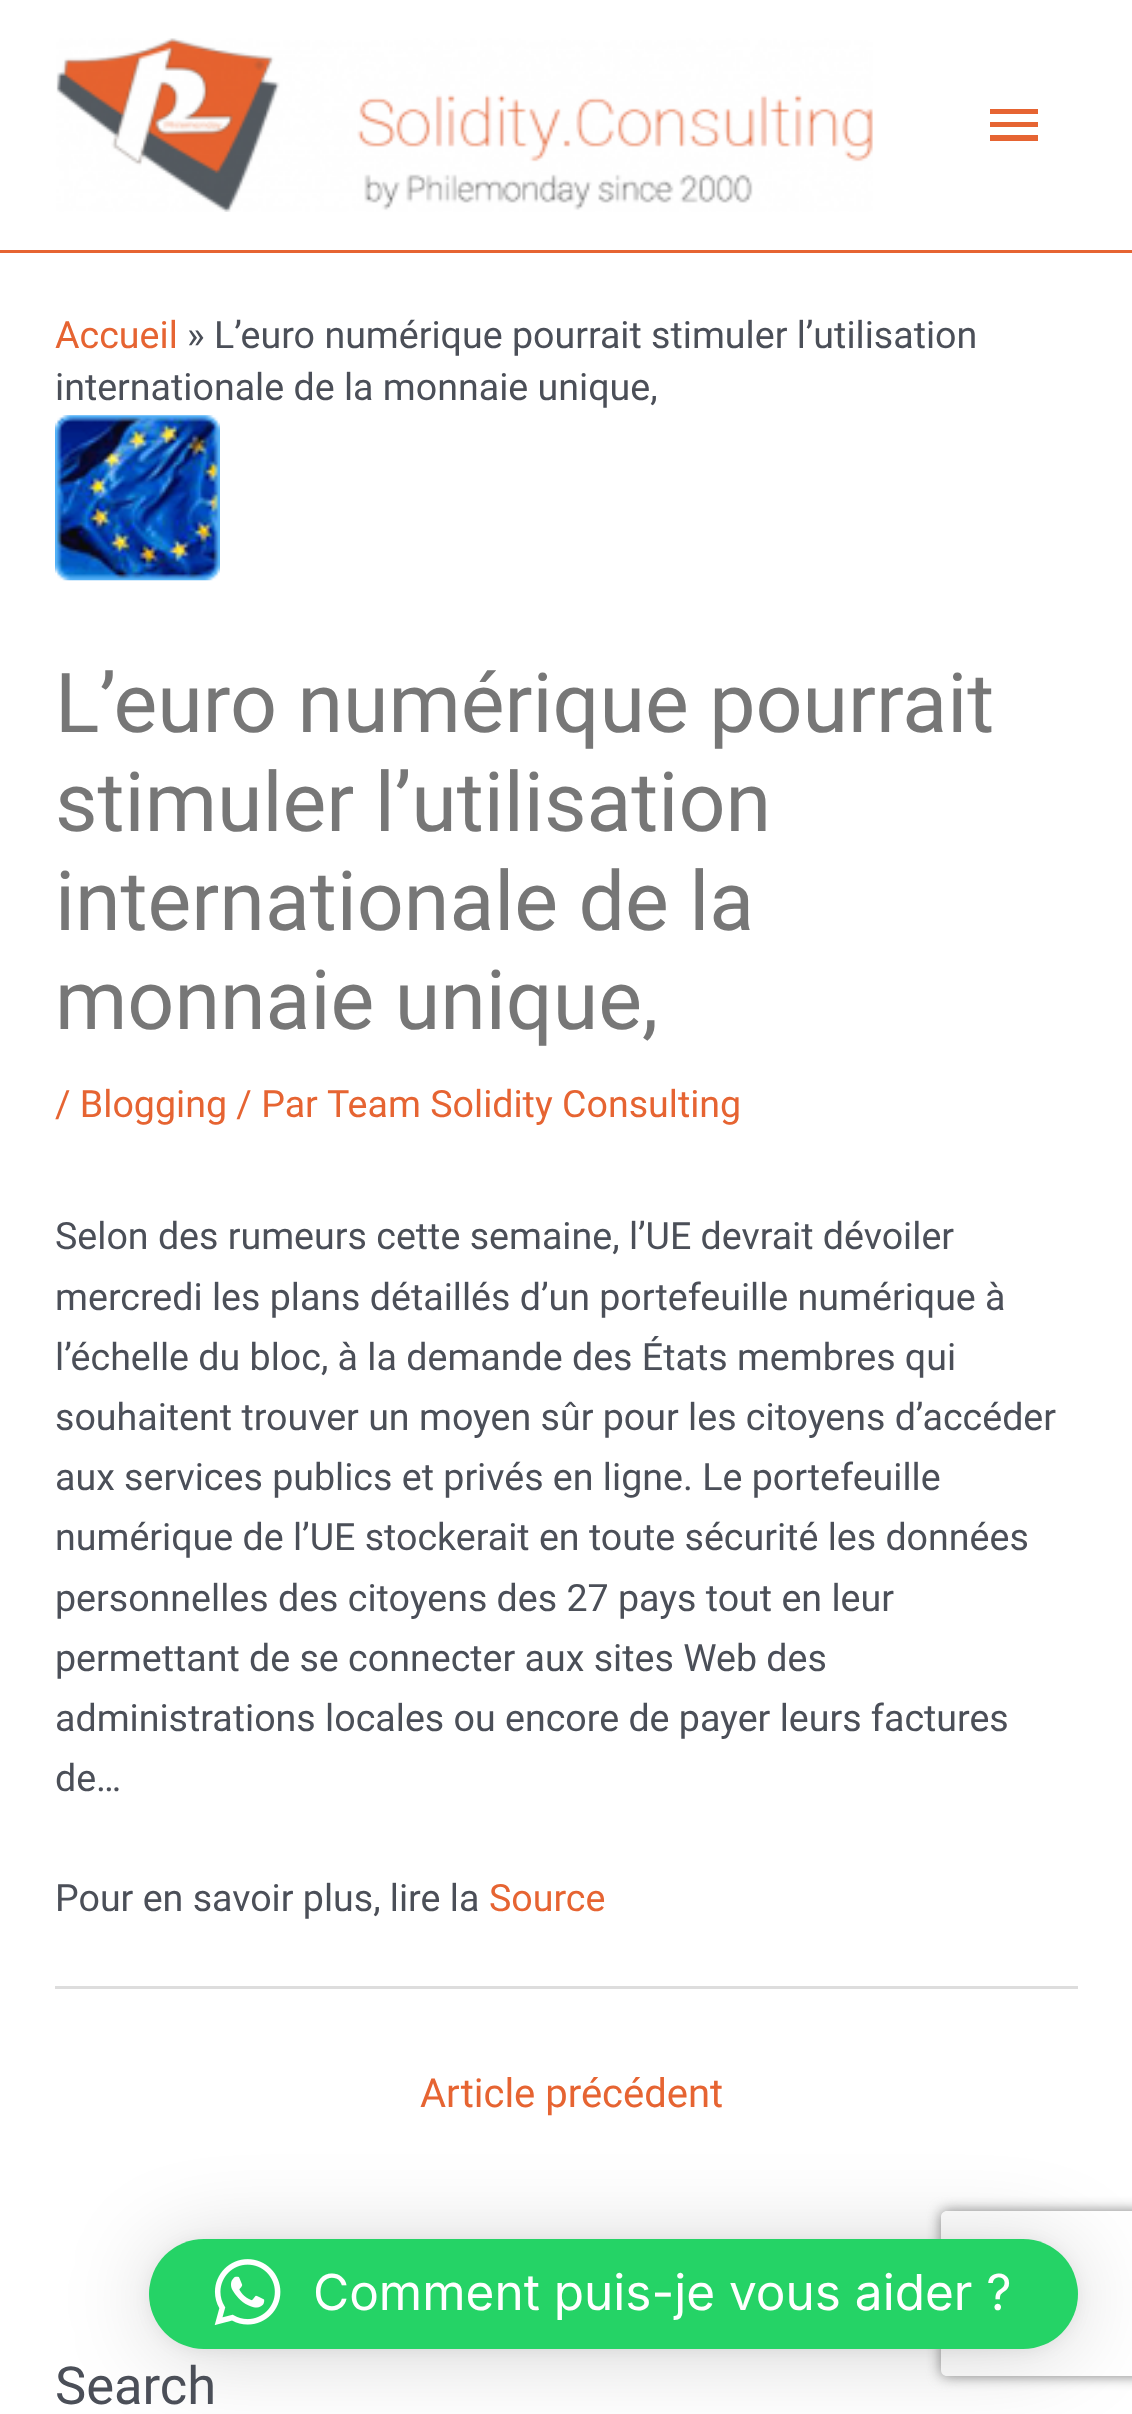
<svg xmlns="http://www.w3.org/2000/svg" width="1132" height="2414">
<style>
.a{font:37.6px Roboto;fill:#e66432}
.b{font:37.6px Roboto;fill:#4b4f58}
.c{font:82.5px Roboto;fill:#777}
.d{font:40px Roboto;fill:#e66432}
.e{font:52.5px Roboto;fill:#4b4f58}
.f{font:49.5px Inter;fill:#fff}
</style>
<defs>
<clipPath id="clip1"><path d="M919 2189h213v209h-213zm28 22h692c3.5 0 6 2.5 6 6v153c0 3.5-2.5 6-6 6h-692c-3.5 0-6-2.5-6-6v-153c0-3.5 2.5-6 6-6z" clip-rule="evenodd"/></clipPath>
</defs>
<rect width="100%" height="100%" fill="#fff"/>
<path fill="#e66432" d="M0 250h1132v3H0z"/>
<image href="1.png" x="56" y="38" width="817" height="174"/>
<path fill="#e66432" d="M990 109h48v5h-48zm0 18v-5h48v5zm0 14v-6h48v6z"/>
<image href="2.png" x="55" y="415" width="165" height="166"/>
<path fill="#ddd" d="M55 1986h1023v3H55z"/>
<rect fill="#00000029" filter="blur(44px)" x="149" y="2244" width="929" height="110" rx="55"/>
<rect fill="#0000000f" filter="blur(8px)" x="149" y="2241" width="929" height="110" rx="55"/>
<g clip-path="url(#clip1)">
<rect fill="#808080" filter="blur(7px)" x="941" y="2211" width="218" height="165" rx="6"/>
</g>
<rect fill="#25d366" x="149" y="2239" width="929" height="110" rx="55"/>
<image href="3.png" x="214" y="2259" width="67" height="67"/>
<text class="a" x="55" y="348">Accueil</text>
<text class="b" x="187" y="348">» L’euro numérique pourrait stimuler l’utilisation</text>
<text class="b" x="55" y="400">internationale de la monnaie unique,</text>
<text class="c" x="55" y="732">L’euro numérique pourrait</text>
<text class="c" x="55" y="831">stimuler l’utilisation</text>
<text class="c" x="55" y="930">internationale de la</text>
<text class="c" x="55" y="1029">monnaie unique,</text>
<text class="a" x="55" y="1117">/ Blogging / Par</text>
<text class="a" x="327" y="1117">Team Solidity Consulting</text>
<text class="b" x="55" y="1249">Selon des rumeurs cette semaine, l’UE devrait dévoiler</text>
<text class="b" x="55" y="1310">mercredi les plans détaillés d’un portefeuille numérique à</text>
<text class="b" x="55" y="1370">l’échelle du bloc, à la demande des États membres qui</text>
<text class="b" x="55" y="1430">souhaitent trouver un moyen sûr pour les citoyens d’accéder</text>
<text class="b" x="55" y="1490">aux services publics et privés en ligne. Le portefeuille</text>
<text class="b" x="55" y="1550">numérique de l’UE stockerait en toute sécurité les données</text>
<text class="b" x="55" y="1611">personnelles des citoyens des 27 pays tout en leur</text>
<text class="b" x="55" y="1671">permettant de se connecter aux sites Web des</text>
<text class="b" x="55" y="1731">administrations locales ou encore de payer leurs factures</text>
<text class="b" x="55" y="1791">de…</text>
<text class="b" x="55" y="1911">Pour en savoir plus, lire la</text>
<text class="a" x="489" y="1911">Source</text>
<text class="d" x="420" y="2107">Article précédent</text>
<text class="e" x="55" y="2404">Search</text>
<text class="f" x="313" y="2310">Comment puis-je vous aider ?</text>
</svg>
